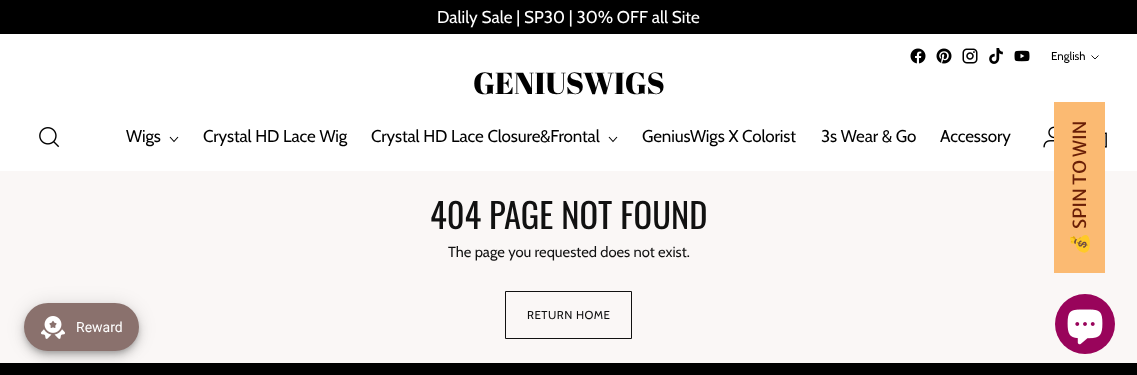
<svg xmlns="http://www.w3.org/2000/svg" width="1137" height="375">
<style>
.a{font:17.1px Cabin;fill:#fff}
.b{font:11.5px Cabin;fill:#000}
.c{font:30.5px Abril Fatface;fill:#000}
.d{font:17px Cabin;letter-spacing:-0.1px;fill:#000}
.e{font:34.5px Oswald;fill:#111}
.f{font:14.75px Cabin;fill:#111}
.g{font:11.5px Cabin;letter-spacing:0.5px;fill:#111}
.h{font:18px Merriweather Sans;fill:#691e06}
.i{font:18px Noto Color Emoji;fill:#691e06}
.j{font:14px Roboto;fill:#fff}
</style>
<defs>
<clipPath id="clip1"><path d="M1068 254.5v-134h23v134z"/></clipPath>
</defs>
<rect width="100%" height="100%" fill="#faf7f6"/>
<path fill="#000" d="M0 0h1137v34H0z"/>
<path fill="#fff" d="M0 34h1137v137H0z"/>
<image href="1.png" x="910" y="48" width="16" height="16"/>
<image href="2.png" x="936" y="48" width="16" height="16"/>
<image href="3.png" x="962" y="48" width="16" height="16"/>
<image href="4.png" x="989" y="48" width="14" height="16"/>
<image href="5.png" x="1014" y="50" width="16" height="12"/>
<path fill="none" stroke="#000" stroke-width="0.9" d="M1091.5 55.5l3.5 3.5l3.5-3.5"/>
<image href="6.png" x="39" y="127" width="21" height="21"/>
<path fill="none" stroke="#000" stroke-width="1.1" d="M170 137l4 4.5l4-4.5"/>
<path fill="none" stroke="#000" stroke-width="1.1" d="M609 137l4 4.5l4-4.5"/>
<image href="7.png" x="1043" y="126" width="11" height="22"/>
<image href="8.png" x="1105" y="132" width="2" height="16"/>
<path fill="none" stroke="#111" d="M505.5 291.5h126v47H505.5z"/>
<path fill="#000" d="M0 363h1137v12H0z"/>
<path fill="#fbba72" d="M1054 102h51v171H1054z"/>
<rect fill="#0000001f" filter="blur(9px)" x="24" y="304" width="115" height="48" rx="24"/>
<rect fill="#00000024" filter="blur(5px)" x="24" y="309" width="115" height="48" rx="24"/>
<rect fill="#00000033" filter="blur(2.5px)" x="25" y="307" width="113" height="46" rx="23"/>
<rect fill="#8a716d" x="24" y="303" width="115" height="48" rx="24"/>
<image href="9.png" x="41" y="316" width="24" height="23"/>
<circle fill="#99045b" cx="1085" cy="324" r="30"/>
<image href="10.png" x="1067" y="309" width="36" height="36"/>
<text class="a" x="437" y="23">Dalily Sale | SP30 | 30% OFF all Site</text>
<text class="b" x="1051" y="60">English</text>
<text class="c" x="473" y="94">GENIUSWIGS</text>
<text class="d" x="126" y="142">Wigs</text>
<text class="d" x="203" y="142">Crystal HD Lace Wig</text>
<text class="d" x="371" y="142">Crystal HD Lace Closure&amp;Frontal</text>
<text class="d" x="642" y="142">GeniusWigs X Colorist</text>
<text class="d" x="821" y="142">3s Wear &amp; Go</text>
<text class="d" x="940" y="142">Accessory</text>
<text class="e" x="430" y="229">404 PAGE NOT FOUND</text>
<text class="f" x="448" y="257">The page you requested does not exist.</text>
<text class="g" x="527" y="319">RETURN HOME</text>
<text class="h" x="1086" y="229" transform="rotate(-90 1086 229)">SPIN TO WIN</text>
<g clip-path="url(#clip1)">
<text class="i" x="1086" y="255" transform="rotate(-90 1086 255)">💰</text>
</g>
<text class="j" x="76" y="332">Reward</text>
</svg>
